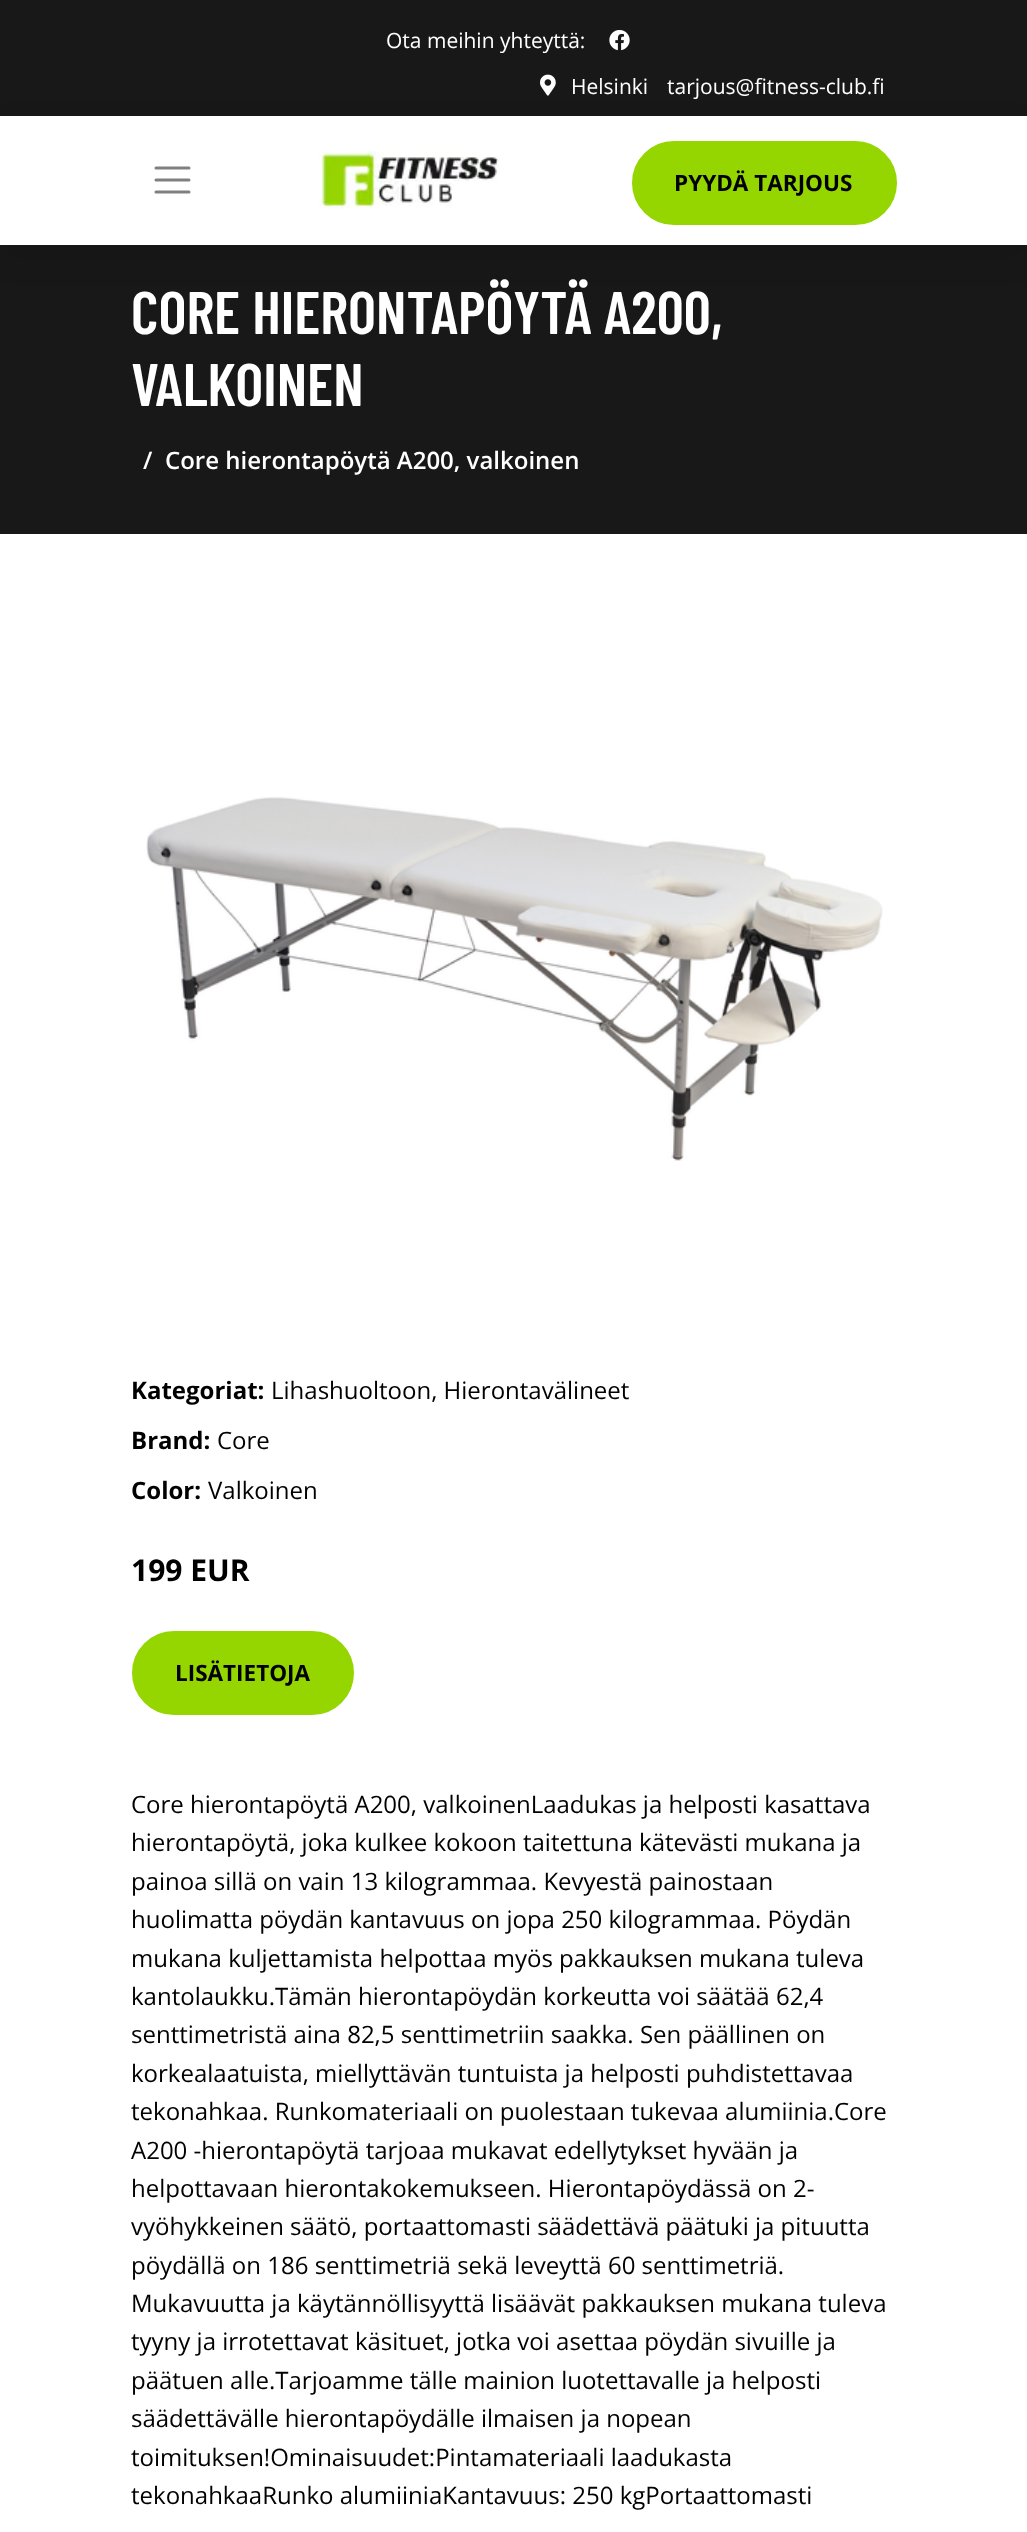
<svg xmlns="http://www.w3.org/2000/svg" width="1027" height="2532">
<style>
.a{font:21px Open Sans;fill:#fff}
.b{font:bold 22.5px Open Sans;fill:#000}
.c{font:600 60px Barlow Condensed;fill:#fff}
.d{font:600 24px Open Sans;fill:#fff}
.e{font:bold 24px Open Sans;fill:#000}
.f{font:24px Open Sans;fill:#000}
.g{font:bold 30px Open Sans;fill:#000}
</style>
<rect width="100%" height="100%" fill="#fff"/>
<path fill="#181818" d="M0 0h1027v116H0z"/>
<image href="1.png" x="609" y="30" width="21" height="21"/>
<image href="2.png" x="540" y="74" width="16" height="22"/>
<path fill="#181818" d="M0 245h1027v289H0z"/>
<path fill="#00000017" filter="blur(15px)" d="M0 129h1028v129H0z"/>
<path fill="#fff" d="M0 116h1027v129H0z"/>
<path fill="none" stroke="#808080" stroke-width="3" stroke-linecap="round" d="M156 168h33m-33 12h33m-33 12h33"/>
<image href="3.png" x="319" y="151" width="180" height="58"/>
<rect fill="#95d600" stroke="#95d600" stroke-width="2" x="633" y="142" width="263" height="82" rx="41"/>
<image href="4.png" x="146" y="797" width="737" height="364"/>
<rect fill="#95d600" stroke="#95d600" stroke-width="2" x="133" y="1632" width="220" height="82" rx="41"/>
<text class="a" x="386" y="48">Ota meihin yhteyttä:</text>
<text class="a" x="571" y="94">Helsinki</text>
<text class="a" x="667" y="94">tarjous@fitness-club.fi</text>
<text class="b" x="674" y="191">PYYDÄ TARJOUS</text>
<text class="c" x="131" y="334">CORE HIERONTAPÖYTÄ A200,</text>
<text class="c" x="131" y="406">VALKOINEN</text>
<text class="d" x="143" y="469">/</text>
<text class="d" x="165" y="469">Core hierontapöytä A200, valkoinen</text>
<text class="e" x="131" y="1399">Kategoriat:</text>
<text class="f" x="271" y="1399">Lihashuoltoon, Hierontavälineet</text>
<text class="e" x="131" y="1449">Brand:</text>
<text class="f" x="217" y="1449">Core</text>
<text class="e" x="131" y="1499">Color:</text>
<text class="f" x="208" y="1499">Valkoinen</text>
<text class="g" x="131" y="1581">199 EUR</text>
<text class="b" x="175" y="1681">LISÄTIETOJA</text>
<text class="f" x="131" y="1813">Core hierontapöytä A200, valkoinenLaadukas ja helposti kasattava</text>
<text class="f" x="131" y="1851">hierontapöytä, joka kulkee kokoon taitettuna kätevästi mukana ja</text>
<text class="f" x="131" y="1890">painoa sillä on vain 13 kilogrammaa. Kevyestä painostaan</text>
<text class="f" x="131" y="1928">huolimatta pöydän kantavuus on jopa 250 kilogrammaa. Pöydän</text>
<text class="f" x="131" y="1967">mukana kuljettamista helpottaa myös pakkauksen mukana tuleva</text>
<text class="f" x="131" y="2005">kantolaukku.Tämän hierontapöydän korkeutta voi säätää 62,4</text>
<text class="f" x="131" y="2043">senttimetristä aina 82,5 senttimetriin saakka. Sen päällinen on</text>
<text class="f" x="131" y="2082">korkealaatuista, miellyttävän tuntuista ja helposti puhdistettavaa</text>
<text class="f" x="131" y="2120">tekonahkaa. Runkomateriaali on puolestaan tukevaa alumiinia.Core</text>
<text class="f" x="131" y="2159">A200 -hierontapöytä tarjoaa mukavat edellytykset hyvään ja</text>
<text class="f" x="131" y="2197">helpottavaan hierontakokemukseen. Hierontapöydässä on 2-</text>
<text class="f" x="131" y="2235">vyöhykkeinen säätö, portaattomasti säädettävä päätuki ja pituutta</text>
<text class="f" x="131" y="2274">pöydällä on 186 senttimetriä sekä leveyttä 60 senttimetriä.</text>
<text class="f" x="131" y="2312">Mukavuutta ja käytännöllisyyttä lisäävät pakkauksen mukana tuleva</text>
<text class="f" x="131" y="2350">tyyny ja irrotettavat käsituet, jotka voi asettaa pöydän sivuille ja</text>
<text class="f" x="131" y="2389">päätuen alle.Tarjoamme tälle mainion luotettavalle ja helposti</text>
<text class="f" x="131" y="2427">säädettävälle hierontapöydälle ilmaisen ja nopean</text>
<text class="f" x="131" y="2466">toimituksen!Ominaisuudet:Pintamateriaali laadukasta</text>
<text class="f" x="131" y="2504">tekonahkaaRunko alumiiniaKantavuus: 250 kgPortaattomasti</text>
</svg>
